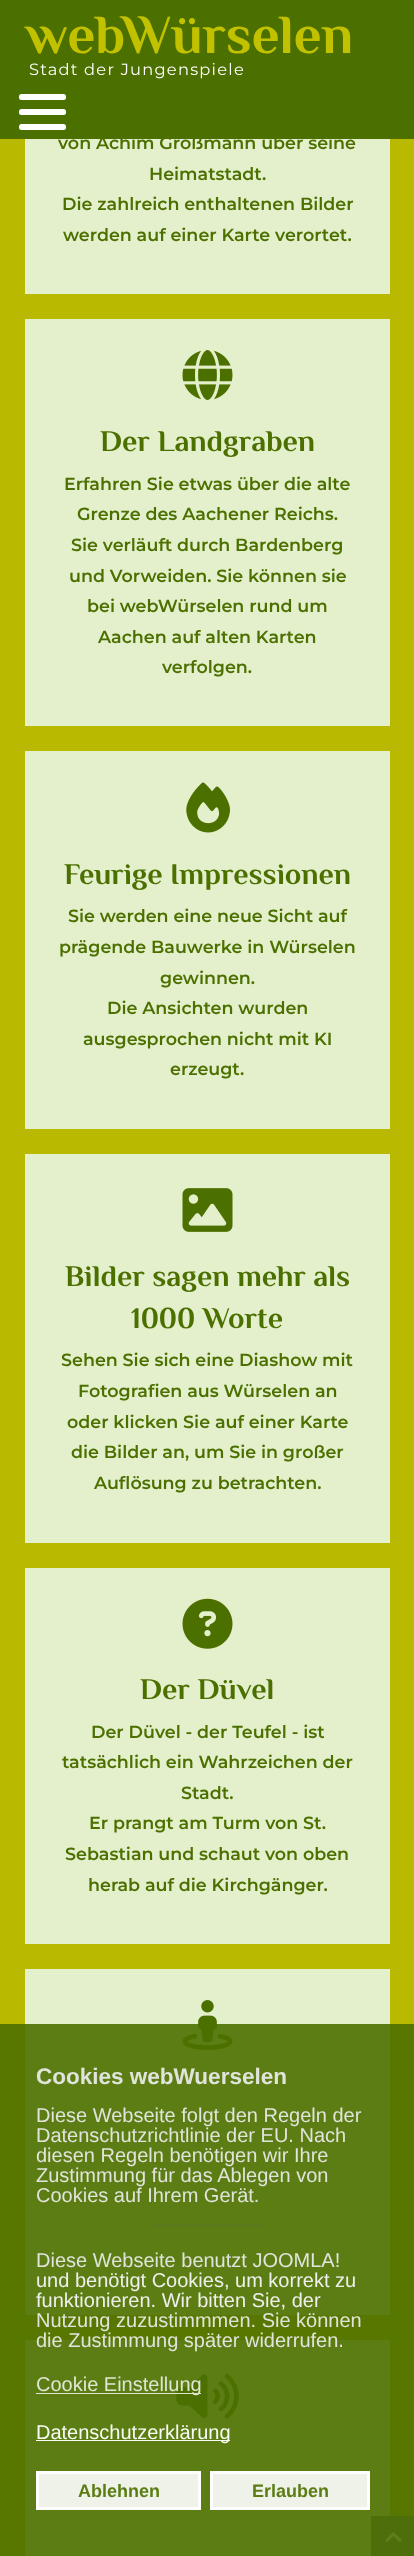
<svg xmlns="http://www.w3.org/2000/svg" width="414" height="2556">
<style>
.a{font:bold 55px Philosopher;fill:#c1c100}
.b{font:16.25px Montserrat;letter-spacing:1.25px;fill:#fff}
.c{font:600 17.5px Montserrat;fill:#4c7000}
.d{font:bold 30px Philosopher;fill:#4c7000}
.e{font:bold 22.5px Liberation Sans;fill:#e1e4da}
.f{font:20px Liberation Sans;fill:#e1e4da}
.g{font:20px Liberation Sans;fill:#eff0ec}
.h{font:20px Liberation Sans;fill:#e0e6d2}
.i{font:20px Liberation Sans;fill:#fafcf5}
.j{font:bold 18px Liberation Sans;fill:#5b7d14}
</style>
<rect width="100%" height="100%" fill="#b9b900"/>
<path fill="#4c7000" d="M0 0h414v139H0z"/>
<rect fill="#fff" x="19" y="109" width="47" height="6" rx="2.5"/>
<rect fill="#fff" x="19" y="94" width="47" height="6" rx="2.5"/>
<rect fill="#fff" x="19" y="124" width="47" height="6" rx="2.5"/>
<path fill="#e4f0cc" d="M25 139h365v155H25z"/>
<path fill="#e4f0cc" d="M25 319h365v407H25z"/>
<image href="1.png" x="182" y="350" width="51" height="50"/>
<path fill="#e4f0cc" d="M25 751h365v378H25z"/>
<image href="2.png" x="186" y="782" width="44" height="51"/>
<path fill="#e4f0cc" d="M25 1154h365v389H25z"/>
<image href="3.png" x="182" y="1188" width="51" height="44"/>
<path fill="#e4f0cc" d="M25 1568h365v376H25z"/>
<image href="4.png" x="182" y="1598" width="51" height="51"/>
<path fill="#e4f0cc" d="M25 1969h365v346H25z"/>
<image href="5.png" x="182" y="2000" width="51" height="50"/>
<path fill="#e4f0cc" d="M25 2340h365v216H25z"/>
<image href="6.png" x="176" y="2373" width="63" height="46"/>
<path fill="#515c70" d="M371 2516h43v40H371z"/>
<image href="7.png" x="385" y="2532" width="17" height="10"/>
<path fill="#4c7000e6" d="M0 2024h414v532H0z"/>
<path fill="#515c703b" d="M151 2225h113v1H151z"/>
<path fill="#ffffffcf" d="M36 2393h165v1H36z"/>
<path fill="#fafcf5" d="M36 2440h194v1H36z"/>
<path fill="#ffffffe6" stroke="#fdfefd" stroke-width="3" d="M37.5 2472.5h162v36H37.5z"/>
<path fill="#ffffffe6" stroke="#fdfefd" stroke-width="3" d="M211.5 2472.5h157v36H211.5z"/>
<text class="a" x="25" y="53">webWürselen</text>
<text class="b" x="29" y="75">Stadt der Jungenspiele</text>
<text class="c" x="58" y="149">von Achim Großmann über seine</text>
<text class="c" x="149" y="180">Heimatstadt.</text>
<text class="c" x="62" y="210">Die zahlreich enthaltenen Bilder</text>
<text class="c" x="63" y="241">werden auf einer Karte verortet.</text>
<text class="d" x="100" y="451">Der Landgraben</text>
<text class="c" x="64" y="490">Erfahren Sie etwas über die alte</text>
<text class="c" x="77" y="520">Grenze des Aachener Reichs.</text>
<text class="c" x="71" y="551">Sie verläuft durch Bardenberg</text>
<text class="c" x="69" y="582">und Vorweiden. Sie können sie</text>
<text class="c" x="87" y="612">bei webWürselen rund um</text>
<text class="c" x="98" y="643">Aachen auf alten Karten</text>
<text class="c" x="162" y="673">verfolgen.</text>
<text class="d" x="64" y="884">Feurige Impressionen</text>
<text class="c" x="68" y="922">Sie werden eine neue Sicht auf</text>
<text class="c" x="59" y="953">prägende Bauwerke in Würselen</text>
<text class="c" x="160" y="984">gewinnen.</text>
<text class="c" x="107" y="1014">Die Ansichten wurden</text>
<text class="c" x="83" y="1045">ausgesprochen nicht mit KI</text>
<text class="c" x="170" y="1075">erzeugt.</text>
<text class="d" x="65" y="1286">Bilder sagen mehr als</text>
<text class="d" x="131" y="1328">1000 Worte</text>
<text class="c" x="61" y="1366">Sehen Sie sich eine Diashow mit</text>
<text class="c" x="78" y="1397">Fotografien aus Würselen an</text>
<text class="c" x="67" y="1428">oder klicken Sie auf einer Karte</text>
<text class="c" x="71" y="1458">die Bilder an, um Sie in großer</text>
<text class="c" x="94" y="1489">Auflösung zu betrachten.</text>
<text class="d" x="140" y="1699">Der Düvel</text>
<text class="c" x="91" y="1738">Der Düvel - der Teufel - ist</text>
<text class="c" x="62" y="1768">tatsächlich ein Wahrzeichen der</text>
<text class="c" x="181" y="1799">Stadt.</text>
<text class="c" x="89" y="1829">Er prangt am Turm von St.</text>
<text class="c" x="65" y="1860">Sebastian und schaut von oben</text>
<text class="c" x="88" y="1891">herab auf die Kirchgänger.</text>
<text class="e" x="36" y="2084">Cookies webWuerselen</text>
<text class="f" x="36" y="2122">Diese Webseite folgt den Regeln der</text>
<text class="f" x="36" y="2142">Datenschutzrichtlinie der EU. Nach</text>
<text class="f" x="36" y="2162">diesen Regeln benötigen wir Ihre</text>
<text class="f" x="36" y="2182">Zustimmung für das Ablegen von</text>
<text class="f" x="36" y="2202">Cookies auf Ihrem Gerät.</text>
<text class="f" x="36" y="2267">Diese Webseite benutzt JOOMLA!</text>
<text class="g" x="36" y="2287">und benötigt Cookies, um korrekt zu</text>
<text class="g" x="36" y="2307">funktionieren. Wir bitten Sie, der</text>
<text class="f" x="36" y="2327">Nutzung zuzustimmmen. Sie können</text>
<text class="f" x="36" y="2347">die Zustimmung später widerrufen.</text>
<text class="h" x="36" y="2391">Cookie Einstellung</text>
<text class="i" x="36" y="2439">Datenschutzerklärung</text>
<text class="j" x="78" y="2497">Ablehnen</text>
<text class="j" x="252" y="2497">Erlauben</text>
</svg>
